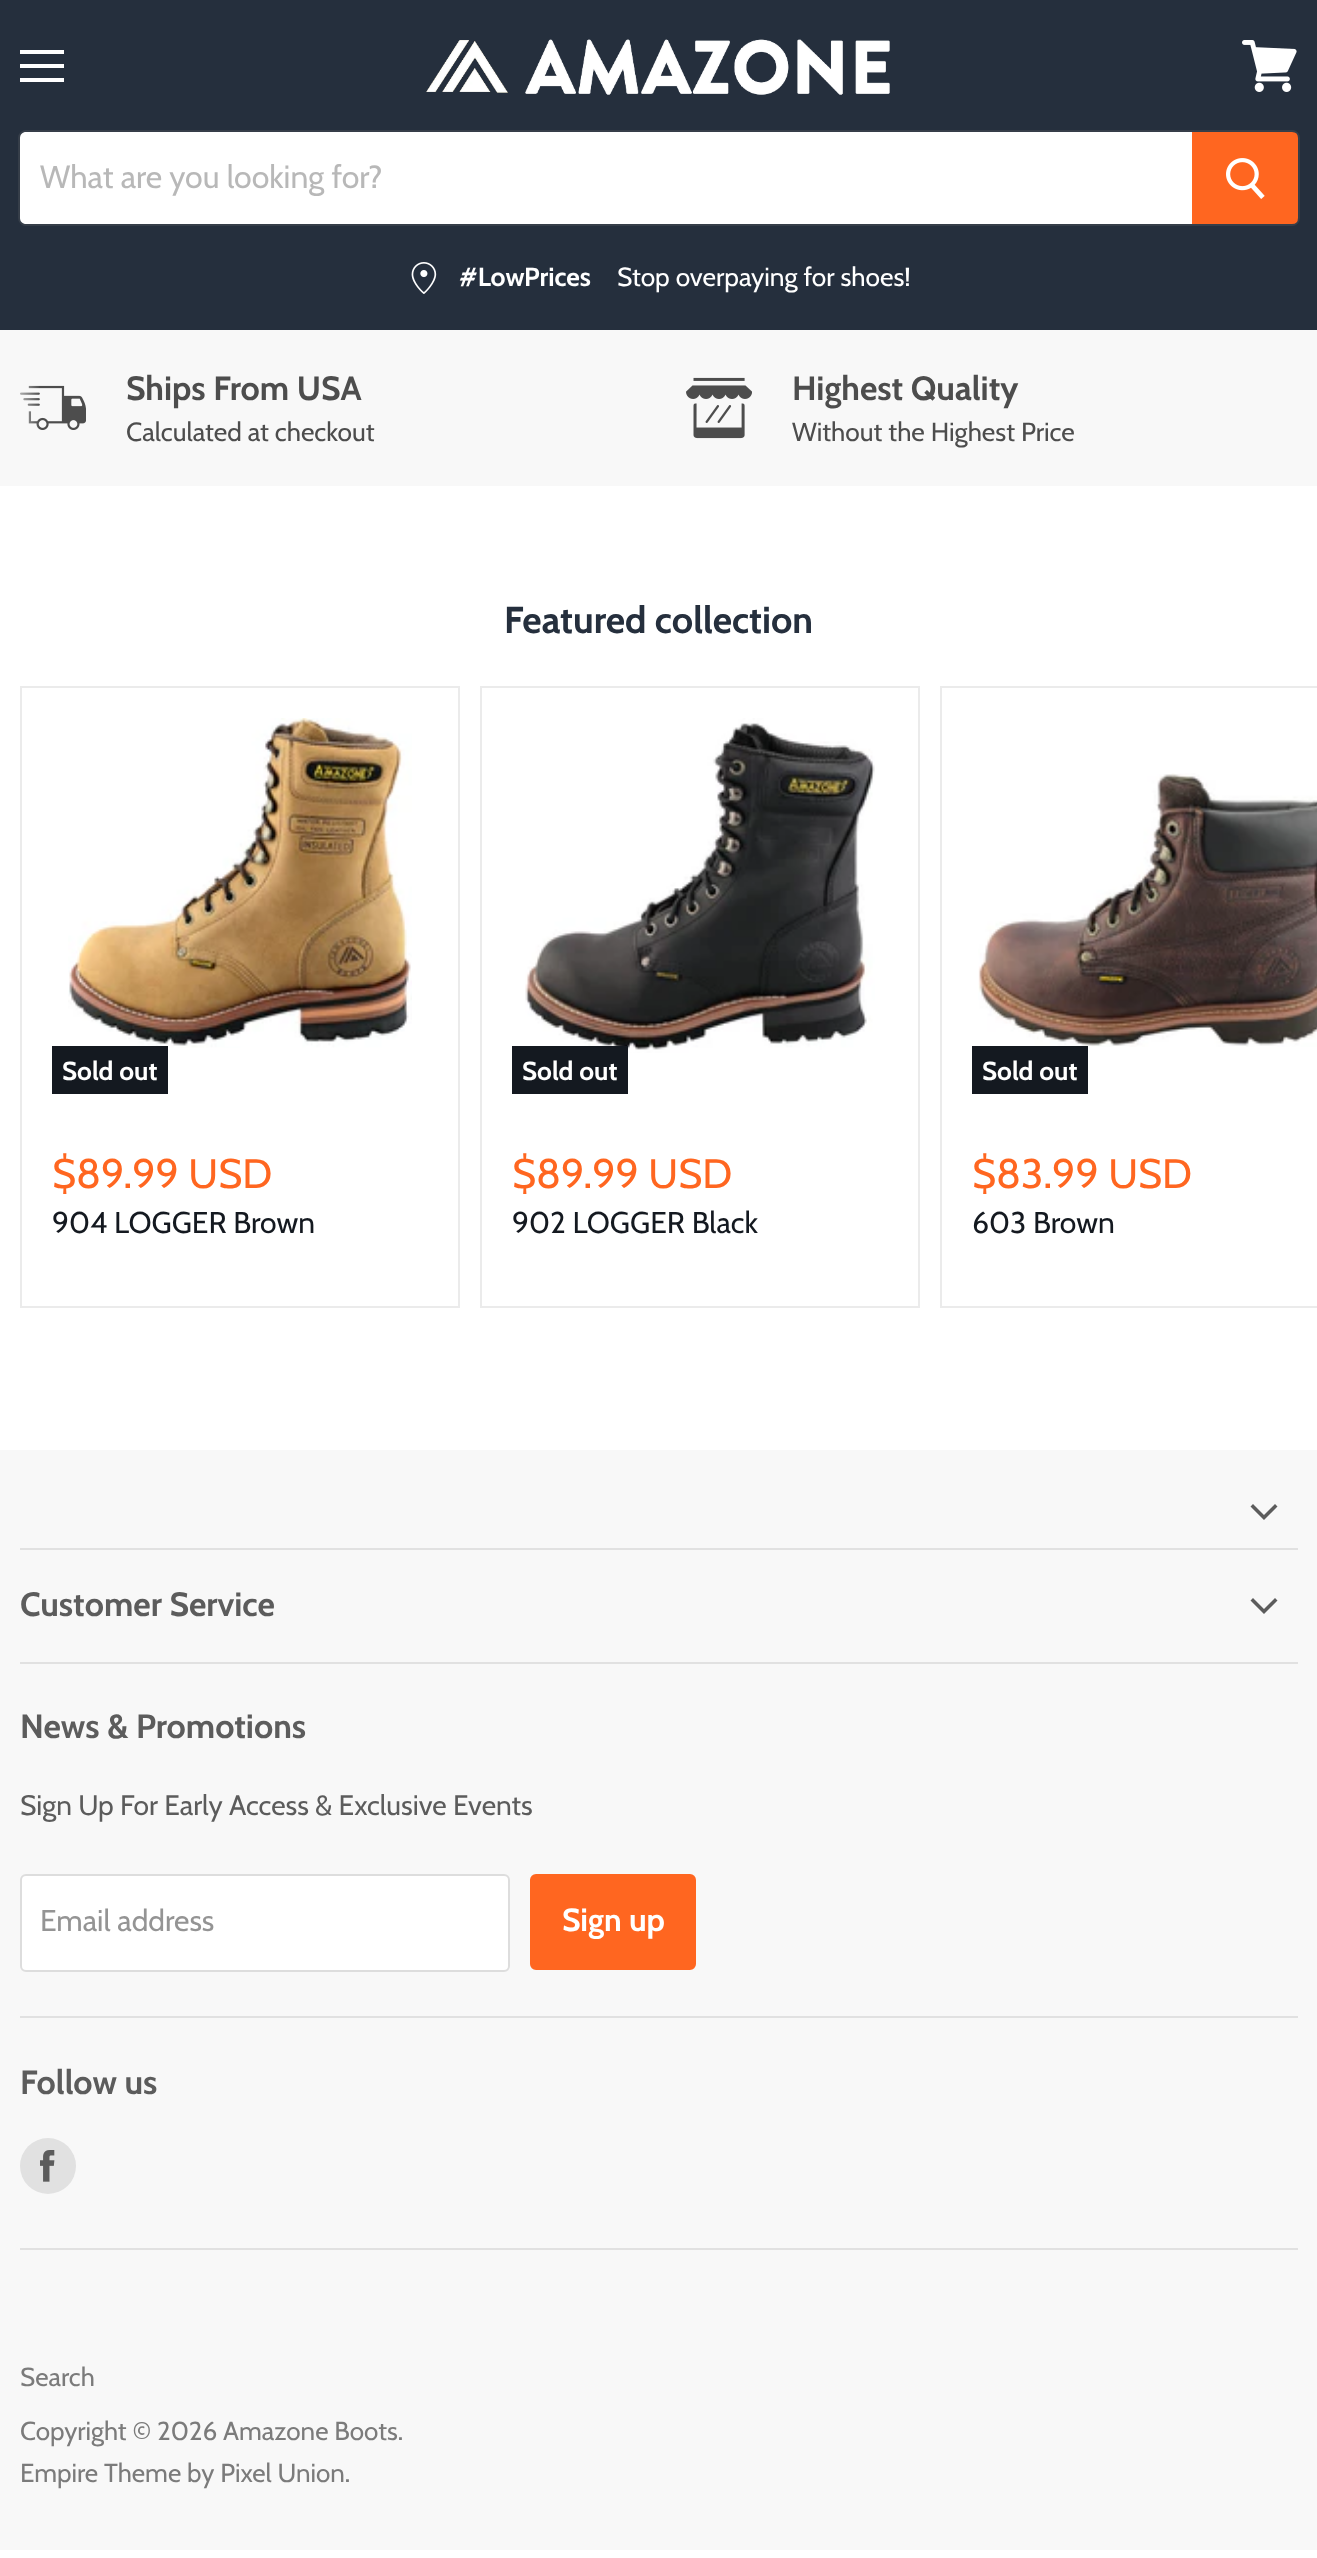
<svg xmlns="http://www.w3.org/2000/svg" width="1317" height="2558">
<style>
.a{font:32px Cabin;fill:#b8b8b8}
.b{font:bold 26.25px Cabin;fill:#fff}
.c{font:26.25px Cabin;fill:#fff}
.d{font:bold 33.75px Cabin;fill:#4d4d4d}
.e{font:26.25px Cabin;fill:#4d4d4d}
.f{font:bold 37.5px Cabin;fill:#252f3d}
.g{font:bold 26px Cabin;fill:#fff}
.h{font:41.25px Cabin;fill:#ff6620}
.i{font:30px Cabin;fill:#141920}
.j{font:bold 33.75px Cabin;fill:#5c5c5c}
.k{font:28.1px Cabin;fill:#5c5c5c}
.l{font:30px Cabin;fill:#949494}
.m{font:bold 32px Cabin;fill:#fff}
.n{font:26px Cabin;fill:#7b7b7b}
</style>
<defs>
<linearGradient id="g1" gradientUnits="userSpaceOnUse" x1="0" y1="408" x2="40" y2="408"><stop offset="0.1" stop-color="#f8f8f8"/><stop offset="1" stop-color="#f8f8f8" stop-opacity="0"/></linearGradient>
</defs>
<rect width="100%" height="100%" fill="#fff"/>
<path fill="#252f3d" d="M0 0h1317v330H0z"/>
<path fill="#fff" d="M20 50h44v4H20z"/>
<path fill="#fff" d="M20 64h44v4H20z"/>
<path fill="#fff" d="M20 78h44v4H20z"/>
<image href="1.png" x="1242" y="40" width="55" height="52"/>
<image href="2.png" x="426" y="39" width="464" height="56"/>
<rect fill="none" stroke="#7f7f7f33" stroke-width="2" x="19" y="131" width="1280" height="94" rx="7"/>
<path fill="#fff" d="M26 132h1166v92h-1166c-3.5 0-6-2.5-6-6v-80c0-3.5 2.5-6 6-6z"/>
<path fill="#ff6620" stroke="#ff6620" stroke-width="2" d="M1193 133h99c3 0 5 2 5 5v80c0 3-2 5-5 5h-99z"/>
<image href="3.png" x="1226" y="158" width="39" height="41"/>
<image href="4.png" x="411" y="262" width="26" height="32"/>
<path fill="#f8f8f8" d="M4 330h1313v156H4z"/>
<image href="5.png" x="20" y="385" width="66" height="45"/>
<path fill="url(#g1)" d="M0 330h39v156H0z"/>
<image href="6.png" x="686" y="377" width="66" height="62"/>
<path fill="none" stroke="#ebebeb" stroke-width="2" d="M21 687h438v620H21z"/>
<image href="7.png" x="68" y="718" width="344" height="330"/>
<path fill="#141920" d="M52 1046h116v48H52z"/>
<path fill="none" stroke="#ebebeb" stroke-width="2" d="M481 687h438v620H481z"/>
<image href="8.png" x="525" y="718" width="350" height="335"/>
<path fill="#141920" d="M512 1046h116v48H512z"/>
<path fill="none" stroke="#ebebeb" stroke-width="2" d="M941 687h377v620H941z"/>
<image href="9.png" x="978" y="773" width="339" height="274"/>
<path fill="#141920" d="M972 1046h116v48H972z"/>
<path fill="#f8f8f8" d="M0 1450h1317v1100H0z"/>
<path fill="#e1e1e1" d="M20 1548h1278v2H20z"/>
<path fill="#5c5c5c" fill-rule="evenodd" d="M1264 1520l13.5-13.5l-2.5-2.5l-11 11zm0-5l-11-11l-2.5 2.5l13.5 13.5z"/>
<path fill="#e1e1e1" d="M20 1662h1278v2H20z"/>
<path fill="#5c5c5c" fill-rule="evenodd" d="M1264 1614l13.5-13.5l-2.5-2.5l-11 11zm0-5l-11-11l-2.5 2.5l13.5 13.5z"/>
<path fill="#e1e1e1" d="M20 2016h1278v2H20z"/>
<rect fill="#fff" stroke="#ddd" stroke-width="2" x="21" y="1875" width="488" height="96" rx="5"/>
<rect fill="#ff6620" stroke="#ff6620" stroke-width="2" x="531" y="1875" width="164" height="94" rx="5"/>
<path fill="#e1e1e1" d="M20 2248h1278v2H20z"/>
<circle fill="#e1e1e1" cx="48" cy="2166" r="28"/>
<image href="10.png" x="40" y="2150" width="15" height="32"/>
<text class="a" x="40" y="188">What are you looking for?</text>
<text class="b" x="459" y="286">#LowPrices</text>
<text class="c" x="617" y="286">Stop overpaying for shoes!</text>
<text class="d" x="126" y="400">Ships From USA</text>
<text class="e" x="126" y="441">Calculated at checkout</text>
<text class="d" x="792" y="400">Highest Quality</text>
<text class="e" x="792" y="441">Without the Highest Price</text>
<text class="f" x="504" y="633">Featured collection</text>
<text class="g" x="62" y="1080">Sold out</text>
<text class="h" x="52" y="1188">$89.99 USD</text>
<text class="i" x="52" y="1233">904 LOGGER Brown</text>
<text class="g" x="522" y="1080">Sold out</text>
<text class="h" x="512" y="1188">$89.99 USD</text>
<text class="i" x="512" y="1233">902 LOGGER Black</text>
<text class="g" x="982" y="1080">Sold out</text>
<text class="h" x="972" y="1188">$83.99 USD</text>
<text class="i" x="972" y="1233">603 Brown</text>
<text class="j" x="20" y="1616">Customer Service</text>
<text class="j" x="20" y="1738">News &amp; Promotions</text>
<text class="k" x="20" y="1815">Sign Up For Early Access &amp; Exclusive Events</text>
<text class="l" x="40" y="1931">Email address</text>
<text class="m" x="562" y="1931">Sign up</text>
<text class="j" x="20" y="2094">Follow us</text>
<text class="n" x="20" y="2386">Search</text>
<text class="n" x="20" y="2440">Copyright © 2026 Amazone Boots.</text>
<text class="n" x="20" y="2482">Empire Theme by Pixel Union.</text>
</svg>
